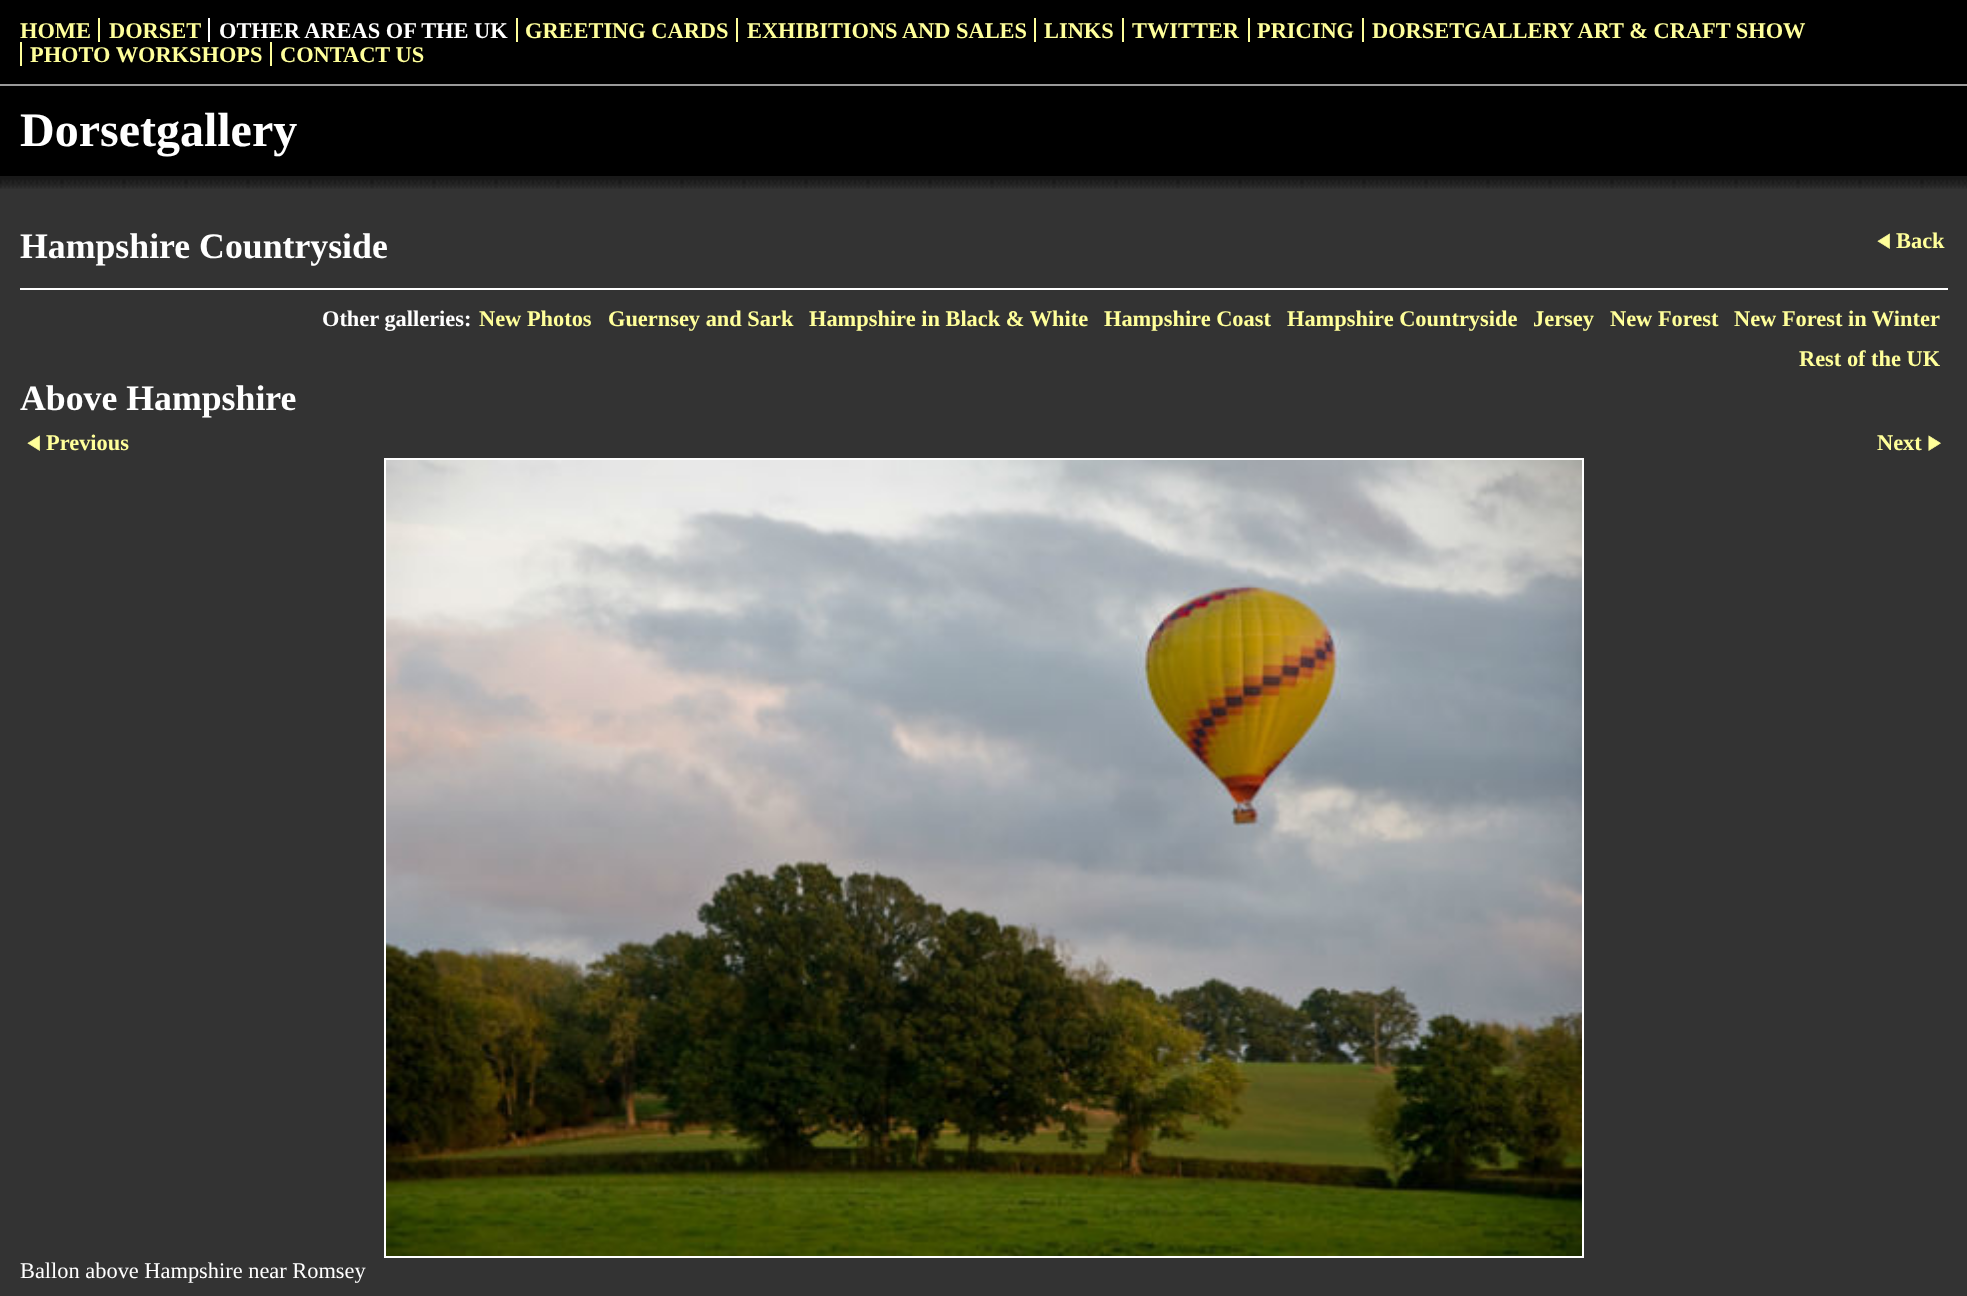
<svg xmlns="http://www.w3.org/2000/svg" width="1967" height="1296">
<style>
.a{font:bold 22.4px Liberation Serif;fill:#ffff9a}
.b{font:bold 22.4px Liberation Serif;fill:#fff}
.c{font:bold 48px Liberation Serif;fill:#fff}
.d{font:bold 35.75px Liberation Serif;fill:#fff}
.e{font:22.4px Liberation Serif;fill:#fff}
</style>
<rect width="100%" height="100%" fill="#333"/>
<path fill="#000" d="M0 0h1967v84H0z"/>
<path fill="#9a9a9a" d="M0 84h1967v2H0z"/>
<path fill="#ffff9a" d="M98 18h2v24H98z"/>
<path fill="#fff" d="M208 18h2v24H208z"/>
<path fill="#ffff9a" d="M516 18h2v24H516z"/>
<path fill="#ffff9a" d="M736 18h2v24H736z"/>
<path fill="#ffff9a" d="M1034 18h2v24H1034z"/>
<path fill="#ffff9a" d="M1122 18h2v24H1122z"/>
<path fill="#ffff9a" d="M1248 18h2v24H1248z"/>
<path fill="#ffff9a" d="M1362 18h2v24H1362z"/>
<path fill="#ffff9a" d="M20 42h2v24H20z"/>
<path fill="#ffff9a" d="M270 42h2v24H270z"/>
<path fill="#000" d="M0 86h1967v90H0z"/>
<image href="1.png" x="0" y="176" width="1967" height="13"/>
<path fill="#fff" d="M20 288h1928v2H20z"/>
<image href="2.png" x="1877" y="233" width="13" height="16"/>
<image href="2.png" x="27" y="435" width="13" height="16"/>
<image href="3.png" x="1928" y="435" width="13" height="16"/>
<path fill="none" stroke="#fff" stroke-width="2" d="M385 459h1198v798H385z"/>
<image href="4.png" x="386" y="460" width="1196" height="796"/>
<text class="a" x="20" y="38">HOME</text>
<text class="a" x="109" y="38">DORSET</text>
<text class="b" x="219" y="38">OTHER AREAS OF THE UK</text>
<text class="a" x="525" y="38">GREETING CARDS</text>
<text class="a" x="747" y="38">EXHIBITIONS AND SALES</text>
<text class="a" x="1044" y="38">LINKS</text>
<text class="a" x="1132" y="38">TWITTER</text>
<text class="a" x="1257" y="38">PRICING</text>
<text class="a" x="1372" y="38">DORSETGALLERY ART &amp; CRAFT SHOW</text>
<text class="a" x="30" y="62">PHOTO WORKSHOPS</text>
<text class="a" x="280" y="62">CONTACT US</text>
<text class="c" x="20" y="146">Dorsetgallery</text>
<text class="d" x="20" y="258">Hampshire Countryside</text>
<text class="a" x="1896" y="248">Back</text>
<text class="b" x="322" y="326">Other galleries:</text>
<text class="a" x="479" y="326">New Photos</text>
<text class="a" x="608" y="326">Guernsey and Sark</text>
<text class="a" x="809" y="326">Hampshire in Black &amp; White</text>
<text class="a" x="1104" y="326">Hampshire Coast</text>
<text class="a" x="1287" y="326">Hampshire Countryside</text>
<text class="a" x="1533" y="326">Jersey</text>
<text class="a" x="1610" y="326">New Forest</text>
<text class="a" x="1734" y="326">New Forest in Winter</text>
<text class="a" x="1799" y="366">Rest of the UK</text>
<text class="d" x="20" y="410">Above Hampshire</text>
<text class="a" x="46" y="450">Previous</text>
<text class="a" x="1877" y="450">Next</text>
<text class="e" x="20" y="1278">Ballon above Hampshire near Romsey</text>
</svg>
